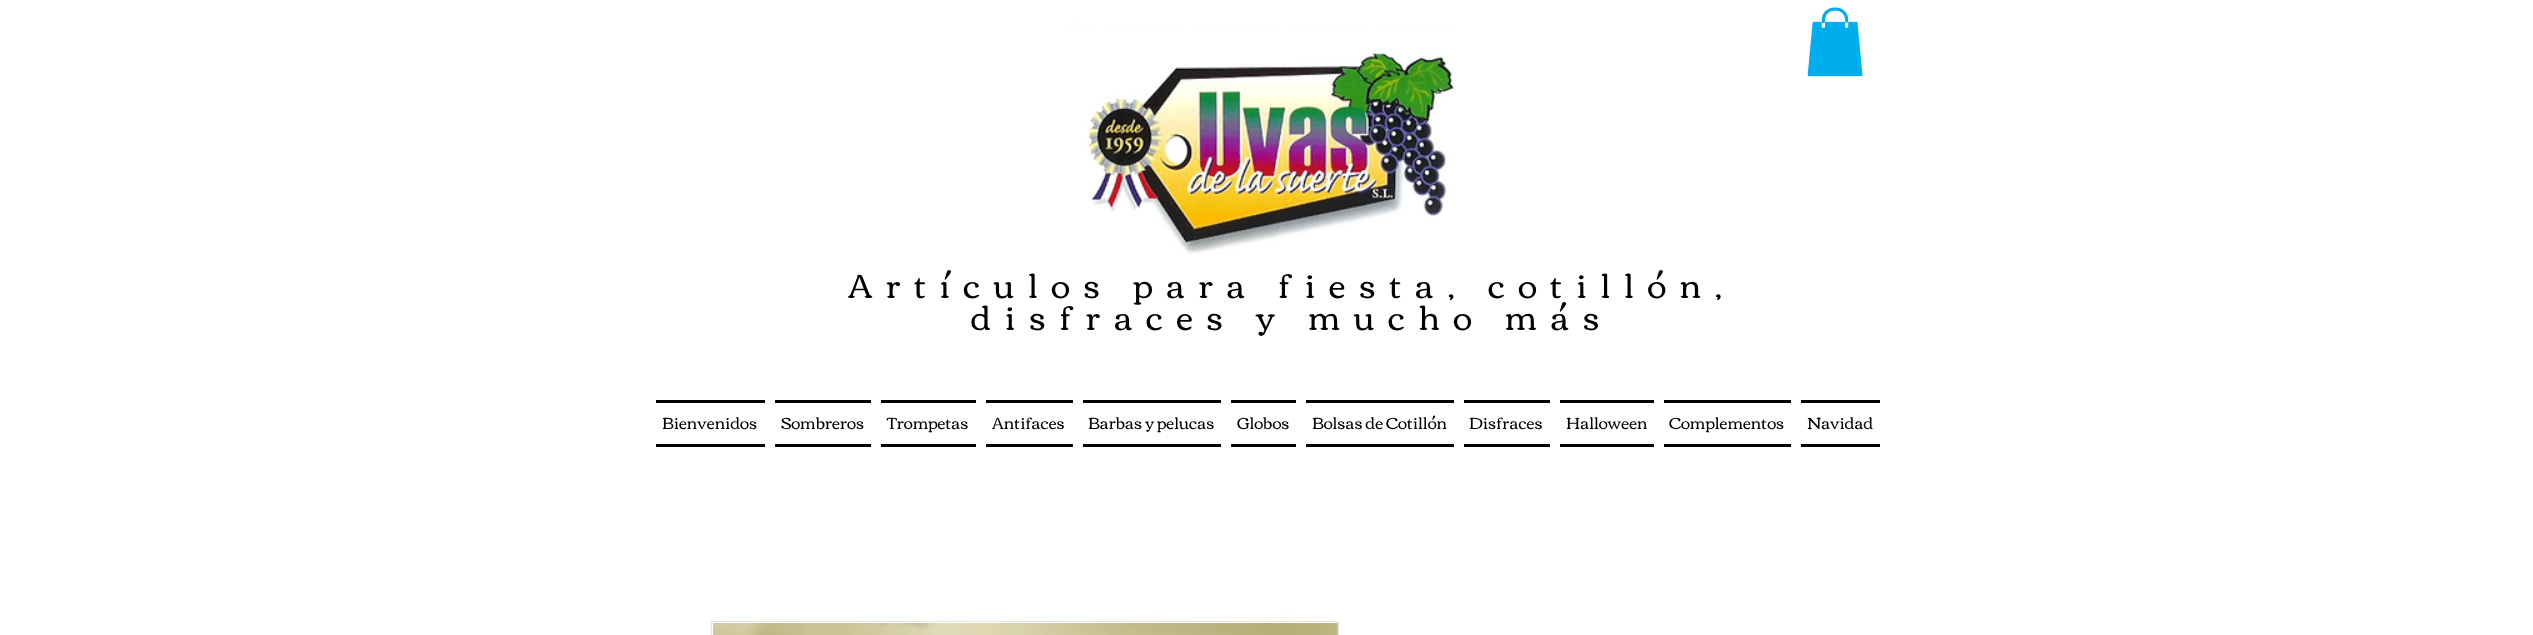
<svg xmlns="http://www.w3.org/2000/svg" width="2533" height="635">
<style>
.a{font:33.75px Corben;letter-spacing:13.5px;fill:#000}
.b{font:16.25px Corben;fill:#000}
</style>
<rect width="100%" height="100%" fill="#fff"/>
<image href="1.png" x="1069" y="23" width="385" height="231"/>
<image href="2.png" x="1807" y="7" width="56" height="70"/>
<path fill="#000" d="M656 400h109v3H656z"/>
<path fill="#000" d="M656 444h109v3H656z"/>
<path fill="#000" d="M775 400h96v3H775z"/>
<path fill="#000" d="M775 444h96v3H775z"/>
<path fill="#000" d="M881 400h95v3H881z"/>
<path fill="#000" d="M881 444h95v3H881z"/>
<path fill="#000" d="M986 400h87v3H986z"/>
<path fill="#000" d="M986 444h87v3H986z"/>
<path fill="#000" d="M1083 400h138v3H1083z"/>
<path fill="#000" d="M1083 444h138v3H1083z"/>
<path fill="#000" d="M1231 400h65v3H1231z"/>
<path fill="#000" d="M1231 444h65v3H1231z"/>
<path fill="#000" d="M1306 400h148v3H1306z"/>
<path fill="#000" d="M1306 444h148v3H1306z"/>
<path fill="#000" d="M1464 400h86v3H1464z"/>
<path fill="#000" d="M1464 444h86v3H1464z"/>
<path fill="#000" d="M1560 400h94v3H1560z"/>
<path fill="#000" d="M1560 444h94v3H1560z"/>
<path fill="#000" d="M1664 400h127v3H1664z"/>
<path fill="#000" d="M1664 444h127v3H1664z"/>
<path fill="#000" d="M1801 400h79v3H1801z"/>
<path fill="#000" d="M1801 444h79v3H1801z"/>
<path fill="none" stroke="#e3e3e3" d="M711.5 621.5h627v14H711.5z"/>
<image href="3.png" x="713" y="623" width="625" height="12"/>
<text class="a" x="848" y="298">Artículos para fiesta, cotillón,</text>
<text class="a" x="971" y="330">disfraces y mucho más</text>
<text class="b" x="662" y="429">Bienvenidos</text>
<text class="b" x="781" y="429">Sombreros</text>
<text class="b" x="887" y="429">Trompetas</text>
<text class="b" x="992" y="429">Antifaces</text>
<text class="b" x="1088" y="429">Barbas y pelucas</text>
<text class="b" x="1237" y="429">Globos</text>
<text class="b" x="1312" y="429">Bolsas de Cotillón</text>
<text class="b" x="1469" y="429">Disfraces</text>
<text class="b" x="1566" y="429">Halloween</text>
<text class="b" x="1669" y="429">Complementos</text>
<text class="b" x="1807" y="429">Navidad</text>
</svg>
